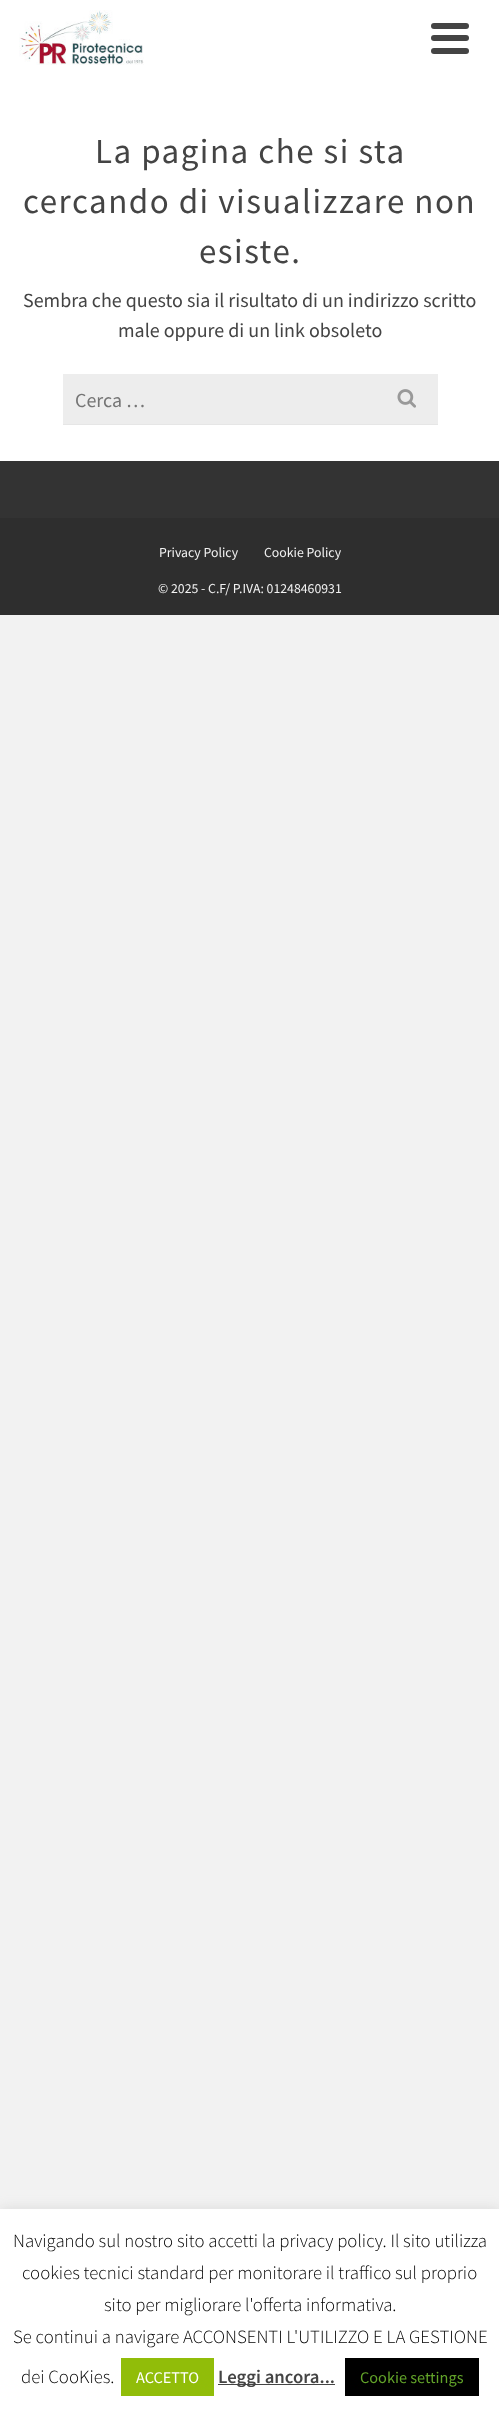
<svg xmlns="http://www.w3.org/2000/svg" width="499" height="2411">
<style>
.a{font:35px Source Sans Pro;letter-spacing:1.5px;fill:#444}
.b{font:20px Source Sans Pro;fill:#444}
.c{font:20px Source Sans Pro;fill:#757575}
.d{font:13.75px Source Sans Pro;fill:#f2f2f2}
.e{font:300 18.75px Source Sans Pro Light;fill:#000}
.f{font:16.25px Source Sans Pro;fill:#fff}
.g{font:600 18.75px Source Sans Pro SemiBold;fill:#444}
.h{font:16.25px Source Sans Pro;fill:#62a329}
</style>
<rect width="100%" height="100%" fill="#f2f2f2"/>
<path fill="#fff" d="M0 0h499v461H0z"/>
<image href="1.png" x="19" y="10" width="125" height="55"/>
<rect fill="#444" x="431" y="23" width="38" height="6" rx="3"/>
<rect fill="#444" x="431" y="35" width="38" height="6" rx="3"/>
<rect fill="#444" x="431" y="48" width="38" height="6" rx="3"/>
<path fill="#e6e6e6" d="M63 424v1h375v-50v49z"/>
<path fill="#ededed" d="M63 374h375v50H63z"/>
<image href="2.png" x="397" y="389" width="19" height="19"/>
<path fill="#333" d="M0 461h499v57H0z"/>
<path fill="#2e2e2e" d="M0 518h499v97H0z"/>
<path fill="#acabab4d" filter="blur(6px)" d="M0 2208h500v202H0z"/>
<path fill="#fff" d="M0 2209h499v202H0z"/>
<path fill="#91bd09" d="M121 2358h93v38H121z"/>
<path fill="#444" d="M218 2384h117v1H218z"/>
<path fill="#000" d="M345 2358h134v38H345z"/>
<text class="a" x="95" y="163">La pagina che si sta</text>
<text class="a" x="23" y="213">cercando di visualizzare non</text>
<text class="a" x="199" y="263">esiste.</text>
<text class="b" x="23" y="307">Sembra che questo sia il risultato di un indirizzo scritto</text>
<text class="b" x="118" y="337">male oppure di un link obsoleto</text>
<text class="c" x="75" y="407">Cerca …</text>
<text class="d" x="159" y="557">Privacy Policy</text>
<text class="d" x="264" y="557">Cookie Policy</text>
<text class="d" x="158" y="593">© 2025 - C.F/ P.IVA: 01248460931</text>
<text class="e" x="13" y="2247">Navigando sul nostro sito accetti la privacy policy. Il sito utilizza</text>
<text class="e" x="22" y="2279">cookies tecnici standard per monitorare il traffico sul proprio</text>
<text class="e" x="104" y="2311">sito per migliorare l'offerta informativa.</text>
<text class="e" x="13" y="2343">Se continui a navigare ACCONSENTI L'UTILIZZO E LA GESTIONE</text>
<text class="e" x="21" y="2383">dei CooKies.</text>
<text class="f" x="136" y="2383">ACCETTO</text>
<text class="g" x="218" y="2383">Leggi ancora...</text>
<text class="h" x="360" y="2383">Cookie settings</text>
</svg>
